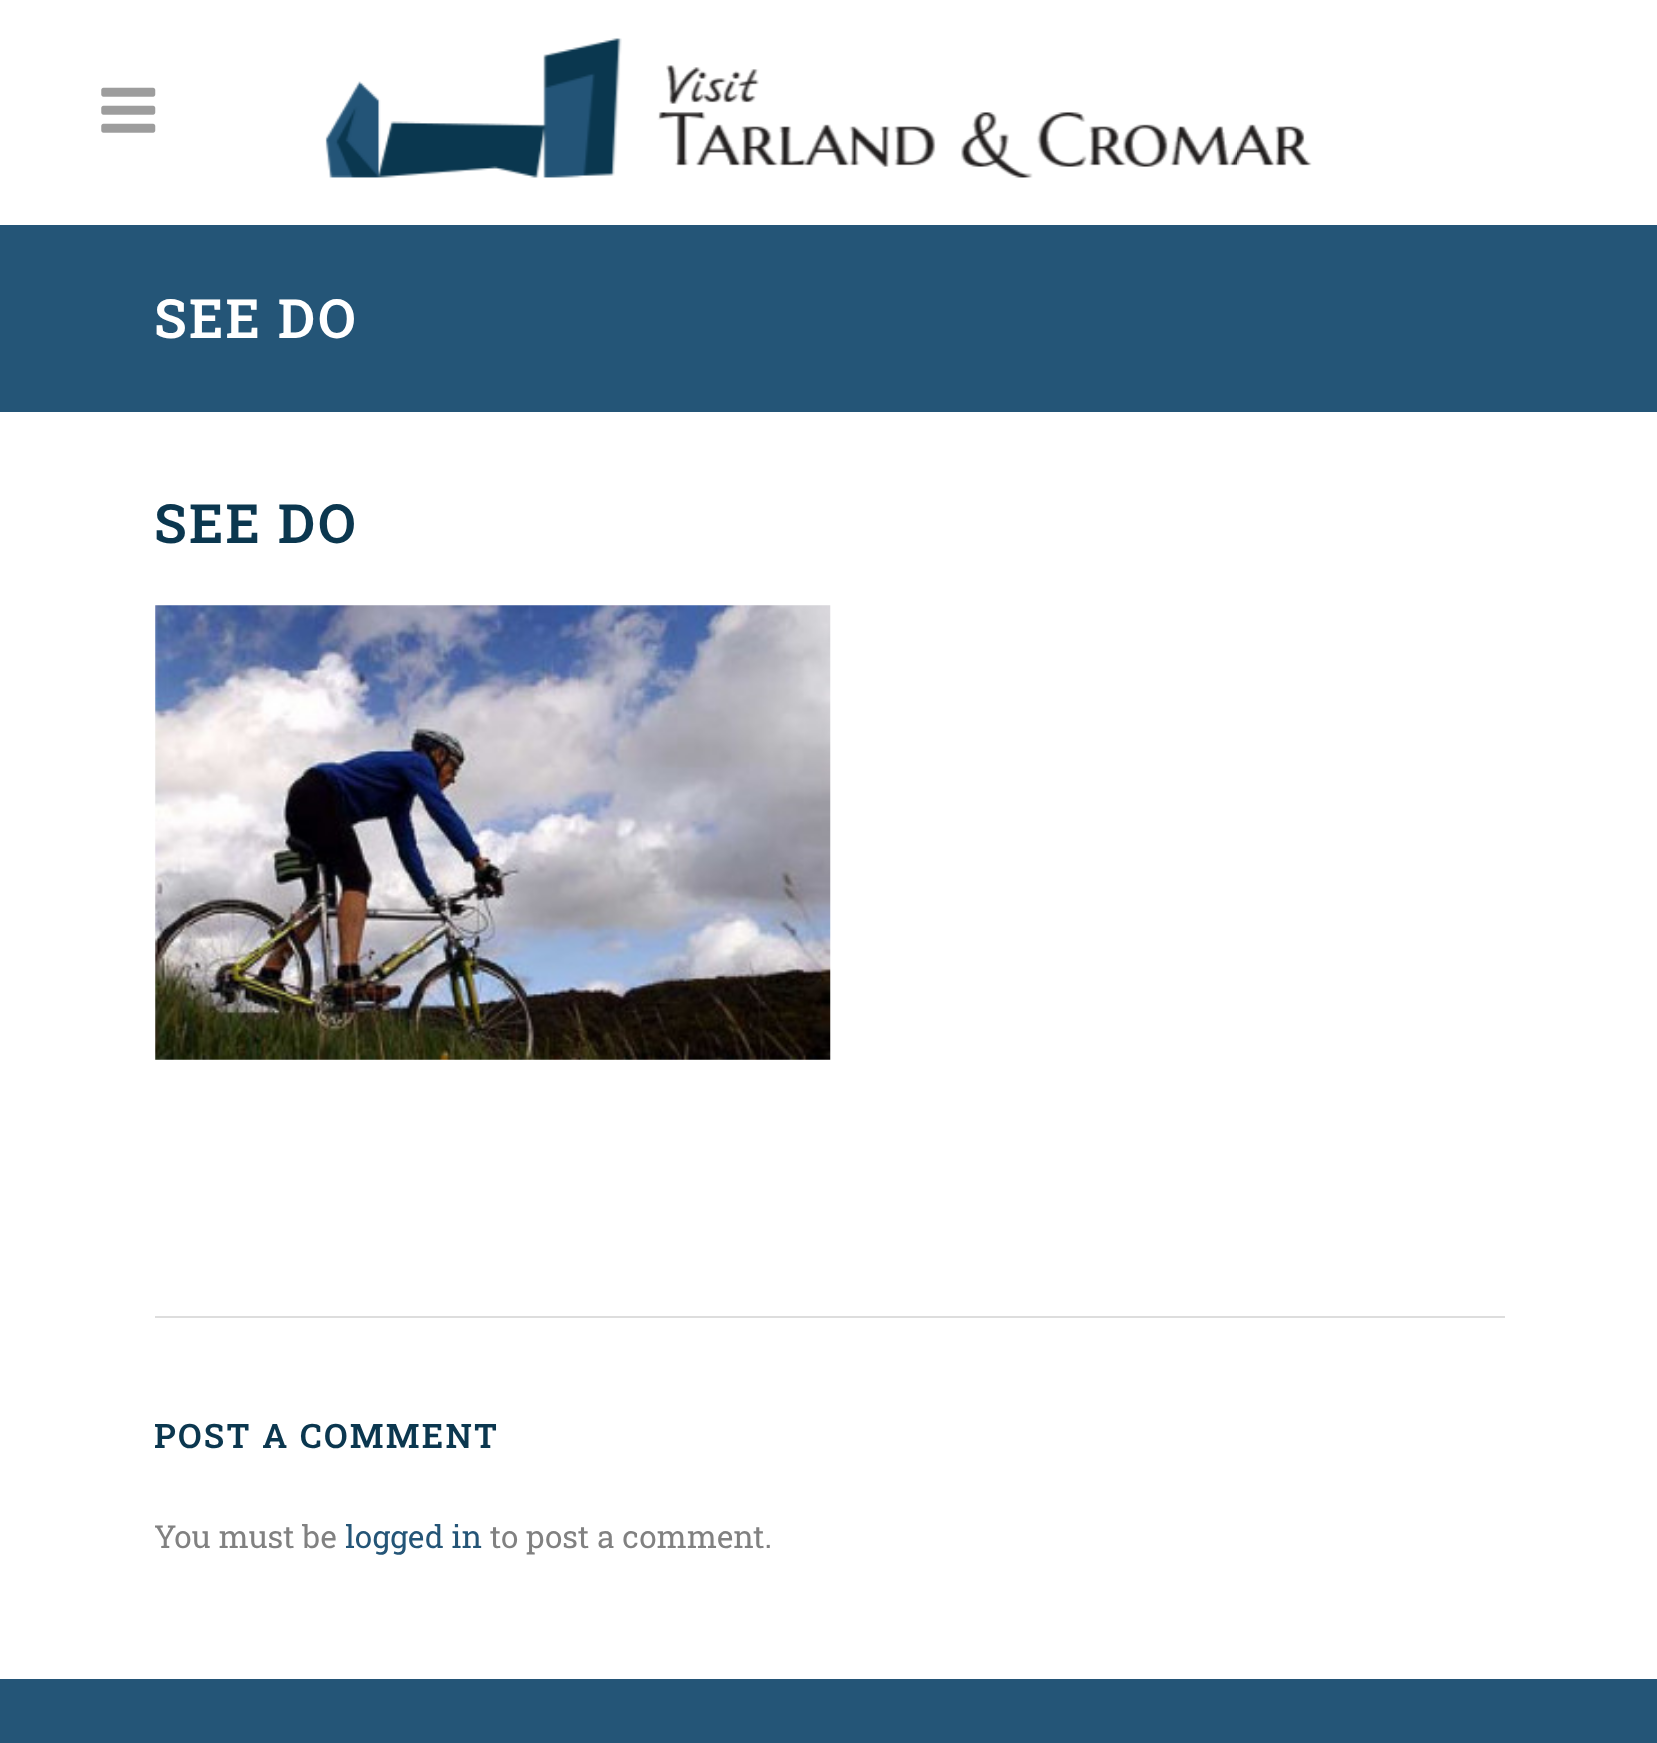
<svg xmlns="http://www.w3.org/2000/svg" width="1657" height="1743">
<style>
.a{font:600 54px Roboto Slab;letter-spacing:2.25px;fill:#fff}
.b{font:600 54px Roboto Slab;letter-spacing:2.25px;fill:#0b374f}
.c{font:600 33.75px Roboto Slab;letter-spacing:2.25px;fill:#0b374f}
.d{font:31.5px Roboto Slab;fill:#818181}
.e{font:31.5px Roboto Slab;fill:#245577}
</style>
<rect width="100%" height="100%" fill="#fff"/>
<image href="1.png" x="101" y="87" width="55" height="46"/>
<image href="2.png" x="325" y="38" width="987" height="140"/>
<path fill="#245577" d="M0 225h1657v187H0z"/>
<image href="3.png" x="155" y="605" width="676" height="455"/>
<path fill="#ddd" d="M155 1316h1350v2H155z"/>
<path fill="#245577" d="M0 1679h1657v64H0z"/>
<text class="a" x="154" y="338">SEE DO</text>
<text class="b" x="154" y="543">SEE DO</text>
<text class="c" x="154" y="1448">POST A COMMENT</text>
<text class="d" x="154" y="1548">You must be</text>
<text class="e" x="345" y="1548">logged in</text>
<text class="d" x="490" y="1548">to post a comment.</text>
</svg>
